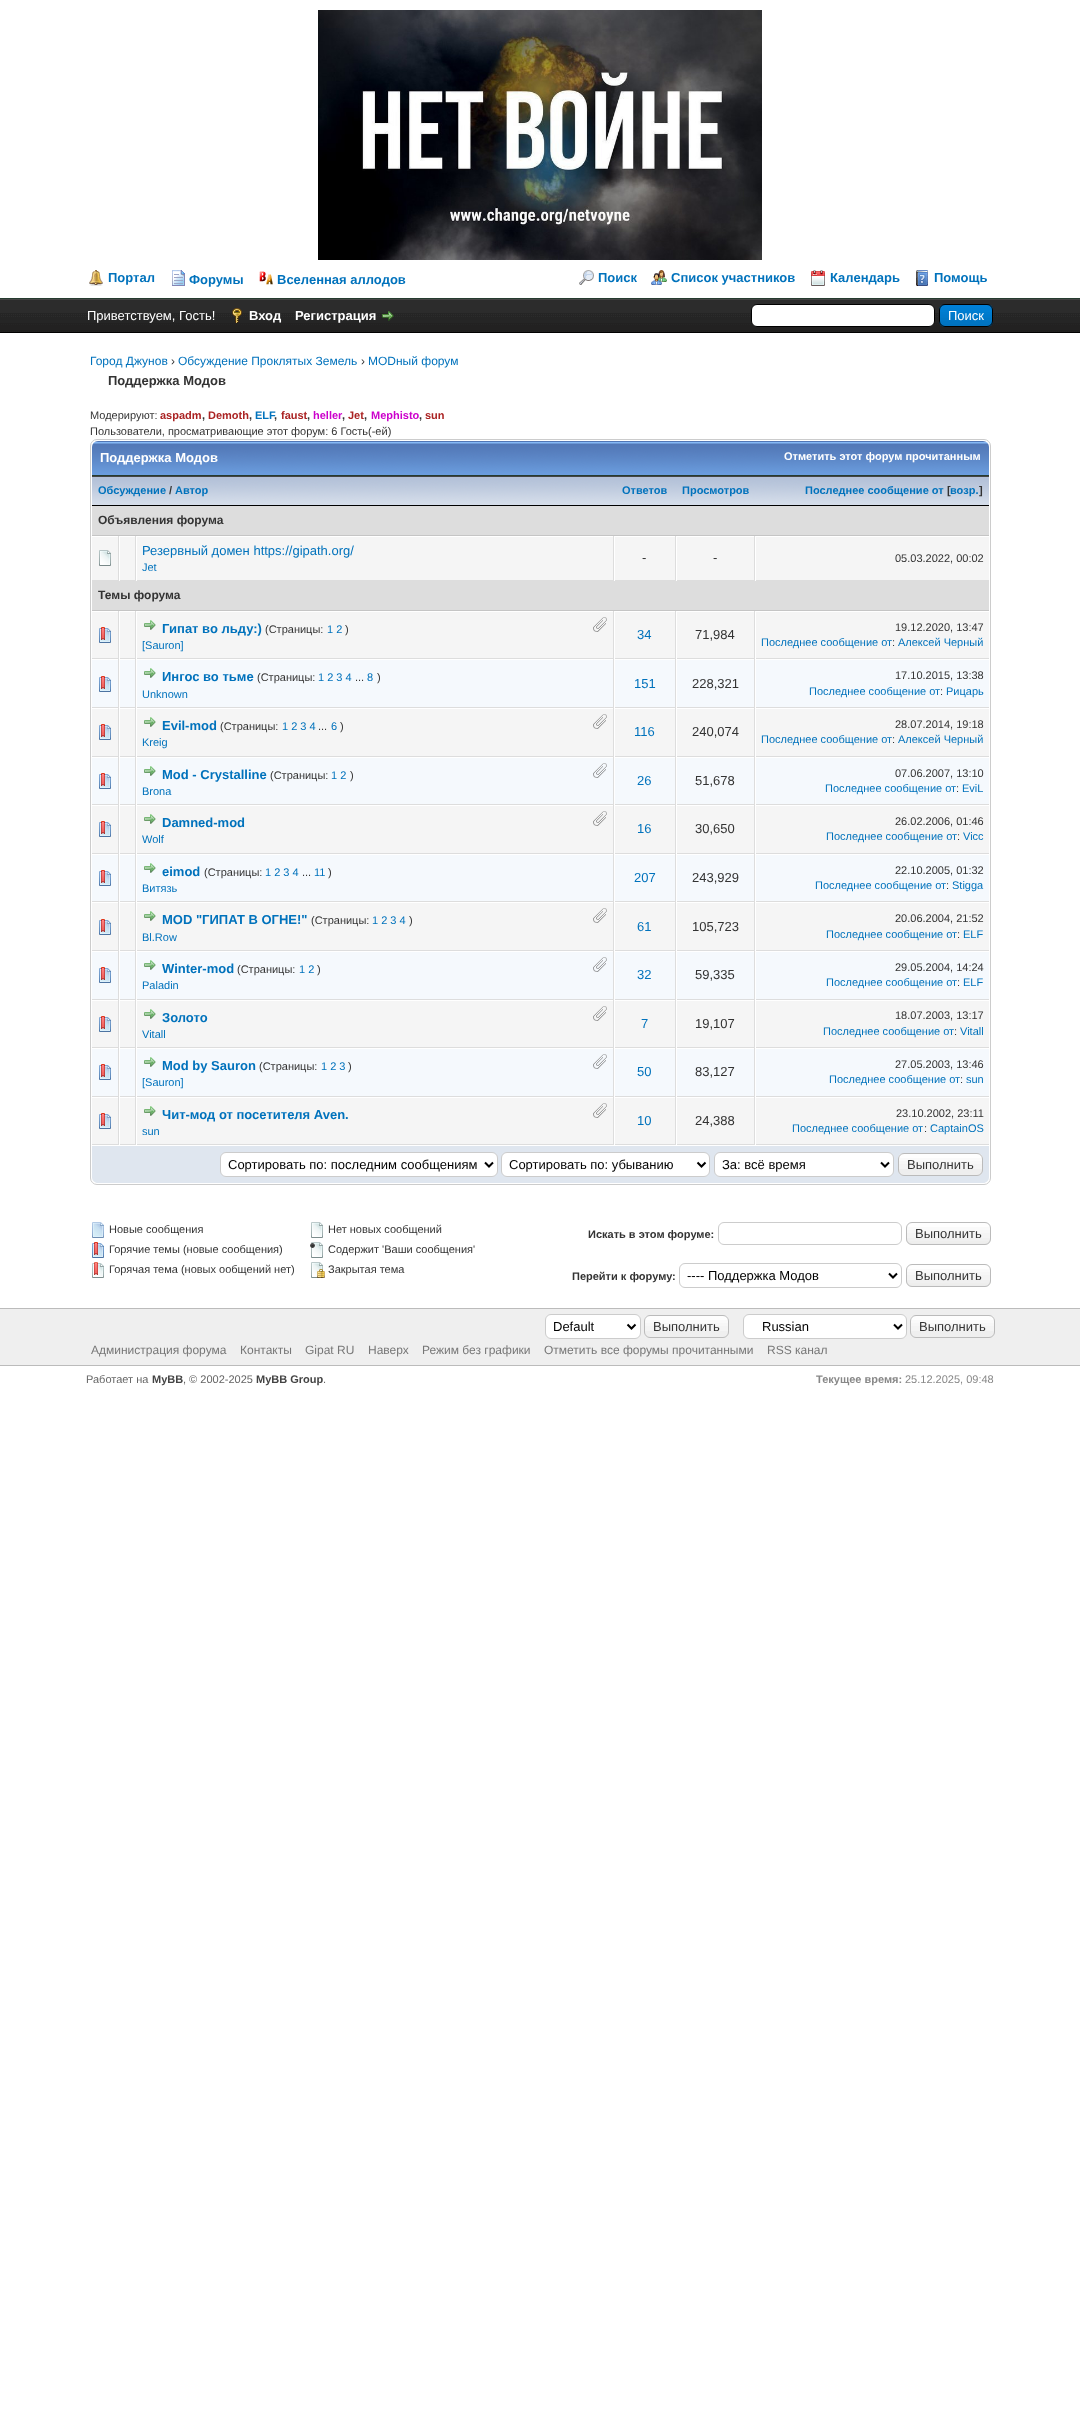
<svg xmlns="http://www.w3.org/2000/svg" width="1080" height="2427">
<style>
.a{font:bold 13px Liberation Sans;fill:#0072bc}
.b{font:13px Liberation Sans;fill:#fff}
.c{font:bold 13px Liberation Sans;fill:#fff}
.d{font:12px Liberation Sans;fill:#0072bc}
.e{font:12px Liberation Sans;fill:#333}
.f{font:bold 13px Liberation Sans;fill:#333}
.g{font:11px Liberation Sans;fill:#333}
.h{font:bold 11px Liberation Sans;fill:#a22}
.i{font:bold 11px Liberation Sans;fill:#333}
.j{font:bold 11px Liberation Sans;fill:#0072bc}
.k{font:bold 11px Liberation Sans;fill:#c0c}
.l{font:bold 11px Liberation Sans;fill:#fff}
.m{font:bold 12px Liberation Sans;fill:#333}
.n{font:13px Liberation Sans;fill:#0072bc}
.o{font:11px Liberation Sans;fill:#0072bc}
.p{font:13px Liberation Sans;fill:#333}
.q{font:13px Liberation Sans;fill:#000}
.r{font:12px Liberation Sans;fill:#777}
.s{font:11px Liberation Sans;fill:#666}
.t{font:bold 11px Liberation Sans;fill:#444}
.u{font:bold 11px Liberation Sans;fill:#888}
.v{font:11px Liberation Sans;fill:#888}
</style>
<rect width="100%" height="100%" fill="#fff"/>
<path fill="#263c30" d="M0 298h1080v1H0z"/>
<image href="1.png" x="318" y="10" width="444" height="250"/>
<image href="2.png" x="89" y="270" width="14" height="16"/>
<image href="3.png" x="172" y="270" width="13" height="16"/>
<image href="4.png" x="259" y="271" width="14" height="14"/>
<image href="5.png" x="579" y="270" width="15" height="15"/>
<image href="6.png" x="651" y="270" width="16" height="15"/>
<image href="7.png" x="811" y="270" width="14" height="16"/>
<image href="8.png" x="916" y="270" width="12" height="16"/>
<image href="9.png" x="0" y="300" width="1080" height="32"/>
<path fill="#444" d="M0 299h1080v1H0z"/>
<path fill="#000" d="M0 332h1080v1H0z"/>
<image href="10.png" x="232" y="308" width="10" height="15"/>
<image href="11.png" x="382" y="311" width="12" height="10"/>
<rect fill="#fff" stroke="#000" x="751.5" y="304.5" width="183" height="22" rx="5.5"/>
<image href="12.png" x="939" y="305" width="54" height="22"/>
<rect fill="none" stroke="#000" x="939.5" y="304.5" width="53" height="22" rx="5.5"/>
<rect fill="none" stroke="#ccc" x="90.5" y="439.5" width="900" height="745" rx="6.5"/>
<image href="13.png" x="92" y="441" width="897" height="34"/>
<path fill="#263c30" d="M92 475h897v1H92z"/>
<image href="14.png" x="92" y="477" width="522" height="28"/>
<path fill="#444" d="M92 476h897v1H92z"/>
<path fill="#000" d="M92 505h897v1H92z"/>
<image href="15.png" x="614" y="477" width="62" height="28"/>
<image href="16.png" x="676" y="477" width="79" height="28"/>
<image href="17.png" x="755" y="477" width="234" height="28"/>
<path fill="#ddd" d="M92 506h897v29H92z"/>
<path fill="#c5c5c5" d="M92 535h897v1H92z"/>
<path fill="#f5f5f5" d="M92 537h26v43H92z"/>
<path fill="#ddd" d="M118 536h1v45H118z"/>
<path fill="#ddd" d="M92 580h27v1H92z"/>
<image href="18.png" x="99" y="550" width="12" height="16"/>
<path fill="#f5f5f5" d="M120 537h15v43H120z"/>
<path fill="#ddd" d="M135 536h1v45H135z"/>
<path fill="#ddd" d="M119 580h17v1H119z"/>
<path fill="#fff" d="M119 580h1v1H119z"/>
<path fill="#f5f5f5" d="M137 537h476v43H137z"/>
<path fill="#ddd" d="M613 536h1v45H613z"/>
<path fill="#ddd" d="M136 580h478v1H136z"/>
<path fill="#fff" d="M136 580h1v1H136z"/>
<path fill="#f5f5f5" d="M615 537h60v43H615z"/>
<path fill="#ddd" d="M675 536h1v45H675z"/>
<path fill="#ddd" d="M614 580h62v1H614z"/>
<path fill="#fff" d="M614 580h1v1H614z"/>
<path fill="#f5f5f5" d="M677 537h77v43H677z"/>
<path fill="#ddd" d="M754 536h1v45H754z"/>
<path fill="#ddd" d="M676 580h313v1H676z"/>
<path fill="#fff" d="M676 580h1v1H676z"/>
<path fill="#f5f5f5" d="M756 537h233v43H756z"/>
<path fill="#fff" d="M755 580h1v1H755z"/>
<path fill="#ddd" d="M92 581h897v29H92z"/>
<path fill="#c5c5c5" d="M92 610h897v1H92z"/>
<path fill="#f5f5f5" d="M92 612h26v46H92z"/>
<path fill="#ddd" d="M118 611h1v534H118z"/>
<path fill="#ddd" d="M92 658h27v1H92z"/>
<image href="19.png" x="99" y="627" width="12" height="16"/>
<path fill="#f5f5f5" d="M120 612h15v46H120z"/>
<path fill="#ddd" d="M135 611h1v534H135z"/>
<path fill="#ddd" d="M119 658h17v1H119z"/>
<path fill="#fff" d="M119 658h1v1H119z"/>
<path fill="#f5f5f5" d="M137 612h476v46H137z"/>
<path fill="#ddd" d="M613 611h1v534H613z"/>
<path fill="#ddd" d="M136 658h478v1H136z"/>
<path fill="#fff" d="M136 658h1v1H136z"/>
<image href="20.png" x="144" y="620" width="12" height="10"/>
<image href="21.png" x="593" y="617" width="14" height="15"/>
<path fill="#f5f5f5" d="M615 612h60v46H615z"/>
<path fill="#ddd" d="M675 611h1v534H675z"/>
<path fill="#ddd" d="M614 658h62v1H614z"/>
<path fill="#fff" d="M614 658h1v1H614z"/>
<path fill="#f5f5f5" d="M677 612h77v46H677z"/>
<path fill="#ddd" d="M754 611h1v534H754z"/>
<path fill="#ddd" d="M676 658h313v1H676z"/>
<path fill="#fff" d="M676 658h1v1H676z"/>
<path fill="#f5f5f5" d="M756 612h233v46H756z"/>
<path fill="#fff" d="M755 658h1v1H755z"/>
<path fill="#f5f9fd" d="M92 660h26v47H92z"/>
<path fill="#ddd" d="M92 707h897v1H92z"/>
<image href="22.png" x="99" y="676" width="12" height="16"/>
<path fill="#f5f9fd" d="M120 660h15v47H120z"/>
<path fill="#fff" d="M119 707h1v1H119z"/>
<path fill="#f5f9fd" d="M137 660h476v47H137z"/>
<path fill="#fff" d="M136 707h1v1H136z"/>
<image href="23.png" x="144" y="668" width="12" height="10"/>
<path fill="#f5f9fd" d="M615 660h60v47H615z"/>
<path fill="#fff" d="M614 707h1v1H614z"/>
<path fill="#f5f9fd" d="M677 660h77v47H677z"/>
<path fill="#fff" d="M676 707h1v1H676z"/>
<path fill="#f5f9fd" d="M756 660h233v47H756z"/>
<path fill="#fff" d="M755 707h1v1H755z"/>
<path fill="#f5f5f5" d="M92 709h26v47H92z"/>
<path fill="#ddd" d="M92 756h897v1H92z"/>
<image href="19.png" x="99" y="724" width="12" height="16"/>
<path fill="#f5f5f5" d="M120 709h15v47H120z"/>
<path fill="#fff" d="M119 756h1v1H119z"/>
<path fill="#f5f5f5" d="M137 709h476v47H137z"/>
<path fill="#fff" d="M136 756h1v1H136z"/>
<image href="20.png" x="144" y="717" width="12" height="10"/>
<image href="21.png" x="593" y="714" width="14" height="15"/>
<path fill="#f5f5f5" d="M615 709h60v47H615z"/>
<path fill="#fff" d="M614 756h1v1H614z"/>
<path fill="#f5f5f5" d="M677 709h77v47H677z"/>
<path fill="#fff" d="M676 756h1v1H676z"/>
<path fill="#f5f5f5" d="M756 709h233v47H756z"/>
<path fill="#fff" d="M755 756h1v1H755z"/>
<path fill="#f5f9fd" d="M92 758h26v46H92z"/>
<path fill="#ddd" d="M92 804h897v1H92z"/>
<image href="22.png" x="99" y="773" width="12" height="16"/>
<path fill="#f5f9fd" d="M120 758h15v46H120z"/>
<path fill="#fff" d="M119 804h1v1H119z"/>
<path fill="#f5f9fd" d="M137 758h476v46H137z"/>
<path fill="#fff" d="M136 804h1v1H136z"/>
<image href="23.png" x="144" y="766" width="12" height="10"/>
<image href="24.png" x="593" y="763" width="14" height="15"/>
<path fill="#f5f9fd" d="M615 758h60v46H615z"/>
<path fill="#fff" d="M614 804h1v1H614z"/>
<path fill="#f5f9fd" d="M677 758h77v46H677z"/>
<path fill="#fff" d="M676 804h1v1H676z"/>
<path fill="#f5f9fd" d="M756 758h233v46H756z"/>
<path fill="#fff" d="M755 804h1v1H755z"/>
<path fill="#f5f5f5" d="M92 806h26v47H92z"/>
<path fill="#ddd" d="M92 853h897v1H92z"/>
<image href="19.png" x="99" y="821" width="12" height="16"/>
<path fill="#f5f5f5" d="M120 806h15v47H120z"/>
<path fill="#fff" d="M119 853h1v1H119z"/>
<path fill="#f5f5f5" d="M137 806h476v47H137z"/>
<path fill="#fff" d="M136 853h1v1H136z"/>
<image href="20.png" x="144" y="814" width="12" height="10"/>
<image href="21.png" x="593" y="811" width="14" height="15"/>
<path fill="#f5f5f5" d="M615 806h60v47H615z"/>
<path fill="#fff" d="M614 853h1v1H614z"/>
<path fill="#f5f5f5" d="M677 806h77v47H677z"/>
<path fill="#fff" d="M676 853h1v1H676z"/>
<path fill="#f5f5f5" d="M756 806h233v47H756z"/>
<path fill="#fff" d="M755 853h1v1H755z"/>
<path fill="#f5f9fd" d="M92 855h26v46H92z"/>
<path fill="#ddd" d="M92 901h897v1H92z"/>
<image href="22.png" x="99" y="870" width="12" height="16"/>
<path fill="#f5f9fd" d="M120 855h15v46H120z"/>
<path fill="#fff" d="M119 901h1v1H119z"/>
<path fill="#f5f9fd" d="M137 855h476v46H137z"/>
<path fill="#fff" d="M136 901h1v1H136z"/>
<image href="23.png" x="144" y="863" width="12" height="10"/>
<path fill="#f5f9fd" d="M615 855h60v46H615z"/>
<path fill="#fff" d="M614 901h1v1H614z"/>
<path fill="#f5f9fd" d="M677 855h77v46H677z"/>
<path fill="#fff" d="M676 901h1v1H676z"/>
<path fill="#f5f9fd" d="M756 855h233v46H756z"/>
<path fill="#fff" d="M755 901h1v1H755z"/>
<path fill="#f5f5f5" d="M92 903h26v47H92z"/>
<path fill="#ddd" d="M92 950h897v1H92z"/>
<image href="19.png" x="99" y="919" width="12" height="16"/>
<path fill="#f5f5f5" d="M120 903h15v47H120z"/>
<path fill="#fff" d="M119 950h1v1H119z"/>
<path fill="#f5f5f5" d="M137 903h476v47H137z"/>
<path fill="#fff" d="M136 950h1v1H136z"/>
<image href="20.png" x="144" y="911" width="12" height="10"/>
<image href="21.png" x="593" y="908" width="14" height="15"/>
<path fill="#f5f5f5" d="M615 903h60v47H615z"/>
<path fill="#fff" d="M614 950h1v1H614z"/>
<path fill="#f5f5f5" d="M677 903h77v47H677z"/>
<path fill="#fff" d="M676 950h1v1H676z"/>
<path fill="#f5f5f5" d="M756 903h233v47H756z"/>
<path fill="#fff" d="M755 950h1v1H755z"/>
<path fill="#f5f9fd" d="M92 952h26v47H92z"/>
<path fill="#ddd" d="M92 999h897v1H92z"/>
<image href="22.png" x="99" y="967" width="12" height="16"/>
<path fill="#f5f9fd" d="M120 952h15v47H120z"/>
<path fill="#fff" d="M119 999h1v1H119z"/>
<path fill="#f5f9fd" d="M137 952h476v47H137z"/>
<path fill="#fff" d="M136 999h1v1H136z"/>
<image href="23.png" x="144" y="960" width="12" height="10"/>
<image href="24.png" x="593" y="957" width="14" height="15"/>
<path fill="#f5f9fd" d="M615 952h60v47H615z"/>
<path fill="#fff" d="M614 999h1v1H614z"/>
<path fill="#f5f9fd" d="M677 952h77v47H677z"/>
<path fill="#fff" d="M676 999h1v1H676z"/>
<path fill="#f5f9fd" d="M756 952h233v47H756z"/>
<path fill="#fff" d="M755 999h1v1H755z"/>
<path fill="#f5f5f5" d="M92 1001h26v46H92z"/>
<path fill="#ddd" d="M92 1047h897v1H92z"/>
<image href="19.png" x="99" y="1016" width="12" height="16"/>
<path fill="#f5f5f5" d="M120 1001h15v46H120z"/>
<path fill="#fff" d="M119 1047h1v1H119z"/>
<path fill="#f5f5f5" d="M137 1001h476v46H137z"/>
<path fill="#fff" d="M136 1047h1v1H136z"/>
<image href="20.png" x="144" y="1009" width="12" height="10"/>
<image href="21.png" x="593" y="1006" width="14" height="15"/>
<path fill="#f5f5f5" d="M615 1001h60v46H615z"/>
<path fill="#fff" d="M614 1047h1v1H614z"/>
<path fill="#f5f5f5" d="M677 1001h77v46H677z"/>
<path fill="#fff" d="M676 1047h1v1H676z"/>
<path fill="#f5f5f5" d="M756 1001h233v46H756z"/>
<path fill="#fff" d="M755 1047h1v1H755z"/>
<path fill="#f5f9fd" d="M92 1049h26v47H92z"/>
<path fill="#ddd" d="M92 1096h897v1H92z"/>
<image href="22.png" x="99" y="1064" width="12" height="16"/>
<path fill="#f5f9fd" d="M120 1049h15v47H120z"/>
<path fill="#fff" d="M119 1096h1v1H119z"/>
<path fill="#f5f9fd" d="M137 1049h476v47H137z"/>
<path fill="#fff" d="M136 1096h1v1H136z"/>
<image href="23.png" x="144" y="1057" width="12" height="10"/>
<image href="24.png" x="593" y="1054" width="14" height="15"/>
<path fill="#f5f9fd" d="M615 1049h60v47H615z"/>
<path fill="#fff" d="M614 1096h1v1H614z"/>
<path fill="#f5f9fd" d="M677 1049h77v47H677z"/>
<path fill="#fff" d="M676 1096h1v1H676z"/>
<path fill="#f5f9fd" d="M756 1049h233v47H756z"/>
<path fill="#fff" d="M755 1096h1v1H755z"/>
<path fill="#f5f5f5" d="M92 1098h26v46H92z"/>
<path fill="#ddd" d="M92 1144h897v1H92z"/>
<image href="19.png" x="99" y="1113" width="12" height="16"/>
<path fill="#f5f5f5" d="M120 1098h15v46H120z"/>
<path fill="#fff" d="M119 1144h1v1H119z"/>
<path fill="#f5f5f5" d="M137 1098h476v46H137z"/>
<path fill="#fff" d="M136 1144h1v1H136z"/>
<image href="20.png" x="144" y="1106" width="12" height="10"/>
<image href="21.png" x="593" y="1103" width="14" height="15"/>
<path fill="#f5f5f5" d="M615 1098h60v46H615z"/>
<path fill="#fff" d="M614 1144h1v1H614z"/>
<path fill="#f5f5f5" d="M677 1098h77v46H677z"/>
<path fill="#fff" d="M676 1144h1v1H676z"/>
<path fill="#f5f5f5" d="M756 1098h233v46H756z"/>
<path fill="#fff" d="M755 1144h1v1H755z"/>
<path fill="#dfe6ef" d="M92 1145h897v32c0 3.5-2.5 6-6 6h-885c-3.5 0-6-2.5-6-6z"/>
<path fill="#fff" d="M92 1145h897v1H92z"/>
<rect fill="#fff" stroke="#ccc" x="220.5" y="1152.5" width="277" height="24" rx="5.5"/>
<path fill="none" stroke="#000" stroke-width="2" d="M485 1162.5l4 4l4-4"/>
<rect fill="#fff" stroke="#ccc" x="501.5" y="1152.5" width="208" height="24" rx="5.5"/>
<path fill="none" stroke="#000" stroke-width="2" d="M697.5 1162.5l4 4l4-4"/>
<rect fill="#fff" stroke="#ccc" x="714.5" y="1152.5" width="179" height="24" rx="5.5"/>
<path fill="none" stroke="#000" stroke-width="2" d="M881 1162.5l4 4l4-4"/>
<rect fill="#eee" x="898" y="1153" width="85" height="23" rx="6"/>
<image href="25.png" x="898" y="1154" width="85" height="15"/>
<rect fill="none" stroke="#bbb" x="898.5" y="1153.5" width="84" height="22" rx="5.5"/>
<image href="26.png" x="92" y="1222" width="12" height="16"/>
<image href="27.png" x="92" y="1242" width="12" height="16"/>
<image href="28.png" x="92" y="1262" width="12" height="16"/>
<image href="29.png" x="311" y="1222" width="12" height="16"/>
<image href="30.png" x="310" y="1242" width="13" height="16"/>
<image href="31.png" x="311" y="1262" width="14" height="16"/>
<rect fill="none" stroke="#ccc" x="718.5" y="1222.5" width="183" height="22" rx="5.5"/>
<image href="32.png" x="906" y="1223" width="85" height="22"/>
<rect fill="none" stroke="#bbb" x="906.5" y="1222.5" width="84" height="22" rx="5.5"/>
<rect fill="none" stroke="#ccc" x="679.5" y="1263.5" width="222" height="24" rx="5.5"/>
<path fill="none" stroke="#000" stroke-width="2" d="M889 1273.5l4 4l4-4"/>
<image href="32.png" x="906" y="1265" width="85" height="22"/>
<rect fill="none" stroke="#bbb" x="906.5" y="1264.5" width="84" height="22" rx="5.5"/>
<path fill="#efefef" d="M0 1309h1080v56H0z"/>
<path fill="#bbb" d="M0 1308h1080v1H0z"/>
<path fill="#bbb" d="M0 1365h1080v1H0z"/>
<rect fill="#fff" stroke="#ccc" x="545.5" y="1314.5" width="95" height="24" rx="5.5"/>
<path fill="none" stroke="#000" stroke-width="2" d="M627.5 1324.5l4 4l4-4"/>
<image href="33.png" x="644" y="1316" width="85" height="15"/>
<rect fill="none" stroke="#bbb" x="644.5" y="1315.5" width="84" height="22" rx="5.5"/>
<rect fill="#fff" stroke="#ccc" x="743.5" y="1314.5" width="163" height="24" rx="5.5"/>
<path fill="none" stroke="#000" stroke-width="2" d="M894 1324.5l4 4l4-4"/>
<image href="33.png" x="910" y="1316" width="85" height="15"/>
<rect fill="none" stroke="#bbb" x="910.5" y="1315.5" width="84" height="22" rx="5.5"/>
<text class="a" x="108" y="282">Портал</text>
<text class="a" x="189" y="284">Форумы</text>
<text class="a" x="277" y="284">Вселенная аллодов</text>
<text class="a" x="598" y="282">Поиск</text>
<text class="a" x="671" y="282">Список участников</text>
<text class="a" x="830" y="282">Календарь</text>
<text class="a" x="934" y="282">Помощь</text>
<text class="b" x="87" y="320">Приветствуем, Гость!</text>
<text class="c" x="249" y="320">Вход</text>
<text class="c" x="295" y="320">Регистрация</text>
<text class="b" x="948" y="320">Поиск</text>
<text class="d" x="90" y="365">Город Джунов</text>
<text class="e" x="171" y="365">›</text>
<text class="d" x="178" y="365">Обсуждение Проклятых Земель</text>
<text class="e" x="361" y="365">›</text>
<text class="d" x="368" y="365">MODный форум</text>
<text class="f" x="108" y="385">Поддержка Модов</text>
<text class="g" x="90" y="419">Модерируют:</text>
<text class="h" x="160" y="419">aspadm</text>
<text class="i" x="202" y="419">,</text>
<text class="h" x="208" y="419">Demoth</text>
<text class="i" x="249" y="419">,</text>
<text class="j" x="255" y="419">ELF</text>
<text class="h" x="281" y="419">faust</text>
<text class="k" x="313" y="419">heller</text>
<text class="h" x="348" y="419">Jet</text>
<text class="k" x="371" y="419">Mephisto</text>
<text class="h" x="425" y="419">sun</text>
<text class="i" x="274" y="419">,</text>
<text class="i" x="307" y="419">,</text>
<text class="i" x="342" y="419">,</text>
<text class="i" x="364" y="419">,</text>
<text class="i" x="419" y="419">,</text>
<text class="g" x="90" y="435">Пользователи, просматривающие этот форум: 6 Гость(-ей)</text>
<text class="c" x="100" y="462">Поддержка Модов</text>
<text class="l" x="784" y="460">Отметить этот форум прочитанным</text>
<text class="j" x="98" y="494">Обсуждение</text>
<text class="i" x="169" y="494">/</text>
<text class="j" x="175" y="494">Автор</text>
<text class="j" x="622" y="494">Ответов</text>
<text class="j" x="682" y="494">Просмотров</text>
<text class="j" x="805" y="494">Последнее сообщение от</text>
<text class="i" x="947" y="494">[</text>
<text class="j" x="950" y="494">возр.</text>
<text class="i" x="979" y="494">]</text>
<text class="m" x="98" y="524">Объявления форума</text>
<text class="n" x="142" y="555">Резервный домен https://gipath.org/</text>
<text class="o" x="142" y="571">Jet</text>
<text class="p" x="642" y="562">-</text>
<text class="p" x="713" y="562">-</text>
<text class="g" x="895" y="562">05.03.2022, 00:02</text>
<text class="m" x="98" y="599">Темы форума</text>
<text class="a" x="162" y="633">Гипат во льду:)</text>
<text class="g" x="265" y="633">(Страницы:</text>
<text class="o" x="327" y="633">1 2</text>
<text class="g" x="345" y="633">)</text>
<text class="o" x="142" y="649">[Sauron]</text>
<text class="n" x="637" y="639">34</text>
<text class="p" x="695" y="639">71,984</text>
<text class="g" x="895" y="631">19.12.2020, 13:47</text>
<text class="o" x="761" y="646">Последнее сообщение от</text>
<text class="g" x="892" y="646">:</text>
<text class="o" x="898" y="646">Алексей Черный</text>
<text class="a" x="162" y="681">Ингос во тьме</text>
<text class="g" x="257" y="681">(Страницы:</text>
<text class="o" x="318" y="681">1 2 3 4</text>
<text class="g" x="355" y="681">...</text>
<text class="o" x="367" y="681">8</text>
<text class="g" x="377" y="681">)</text>
<text class="o" x="142" y="698">Unknown</text>
<text class="n" x="634" y="688">151</text>
<text class="p" x="692" y="688">228,321</text>
<text class="g" x="895" y="679">17.10.2015, 13:38</text>
<text class="o" x="809" y="695">Последнее сообщение от</text>
<text class="g" x="940" y="695">:</text>
<text class="o" x="946" y="695">Рицарь</text>
<text class="a" x="162" y="730">Evil-mod</text>
<text class="g" x="220" y="730">(Страницы:</text>
<text class="o" x="282" y="730">1 2 3 4</text>
<text class="g" x="318" y="730">...</text>
<text class="o" x="331" y="730">6</text>
<text class="g" x="340" y="730">)</text>
<text class="o" x="142" y="746">Kreig</text>
<text class="n" x="634" y="736">116</text>
<text class="p" x="692" y="736">240,074</text>
<text class="g" x="895" y="728">28.07.2014, 19:18</text>
<text class="o" x="761" y="743">Последнее сообщение от</text>
<text class="g" x="892" y="743">:</text>
<text class="o" x="898" y="743">Алексей Черный</text>
<text class="a" x="162" y="779">Mod - Crystalline</text>
<text class="g" x="270" y="779">(Страницы:</text>
<text class="o" x="331" y="779">1 2</text>
<text class="g" x="350" y="779">)</text>
<text class="o" x="142" y="795">Brona</text>
<text class="n" x="637" y="785">26</text>
<text class="p" x="695" y="785">51,678</text>
<text class="g" x="895" y="777">07.06.2007, 13:10</text>
<text class="o" x="825" y="792">Последнее сообщение от</text>
<text class="g" x="956" y="792">:</text>
<text class="o" x="962" y="792">EviL</text>
<text class="a" x="162" y="827">Damned-mod</text>
<text class="o" x="142" y="843">Wolf</text>
<text class="n" x="637" y="833">16</text>
<text class="p" x="695" y="833">30,650</text>
<text class="g" x="895" y="825">26.02.2006, 01:46</text>
<text class="o" x="826" y="840">Последнее сообщение от</text>
<text class="g" x="957" y="840">:</text>
<text class="o" x="963" y="840">Vicc</text>
<text class="a" x="162" y="876">eimod</text>
<text class="g" x="204" y="876">(Страницы:</text>
<text class="o" x="265" y="876">1 2 3 4</text>
<text class="g" x="302" y="876">...</text>
<text class="o" x="314" y="876">11</text>
<text class="g" x="328" y="876">)</text>
<text class="o" x="142" y="892">Витязь</text>
<text class="n" x="634" y="882">207</text>
<text class="p" x="692" y="882">243,929</text>
<text class="g" x="895" y="874">22.10.2005, 01:32</text>
<text class="o" x="815" y="889">Последнее сообщение от</text>
<text class="g" x="946" y="889">:</text>
<text class="o" x="952" y="889">Stigga</text>
<text class="a" x="162" y="924">MOD "ГИПАТ В ОГНЕ!"</text>
<text class="g" x="311" y="924">(Страницы:</text>
<text class="o" x="372" y="924">1 2 3 4</text>
<text class="g" x="409" y="924">)</text>
<text class="o" x="142" y="941">Bl.Row</text>
<text class="n" x="637" y="931">61</text>
<text class="p" x="692" y="931">105,723</text>
<text class="g" x="895" y="922">20.06.2004, 21:52</text>
<text class="o" x="826" y="938">Последнее сообщение от</text>
<text class="g" x="957" y="938">:</text>
<text class="o" x="963" y="938">ELF</text>
<text class="a" x="162" y="973">Winter-mod</text>
<text class="g" x="237" y="973">(Страницы:</text>
<text class="o" x="299" y="973">1 2</text>
<text class="g" x="317" y="973">)</text>
<text class="o" x="142" y="989">Paladin</text>
<text class="n" x="637" y="979">32</text>
<text class="p" x="695" y="979">59,335</text>
<text class="g" x="895" y="971">29.05.2004, 14:24</text>
<text class="o" x="826" y="986">Последнее сообщение от</text>
<text class="g" x="957" y="986">:</text>
<text class="o" x="963" y="986">ELF</text>
<text class="a" x="162" y="1022">Золото</text>
<text class="o" x="142" y="1038">Vitall</text>
<text class="n" x="641" y="1028">7</text>
<text class="p" x="695" y="1028">19,107</text>
<text class="g" x="895" y="1019">18.07.2003, 13:17</text>
<text class="o" x="823" y="1035">Последнее сообщение от</text>
<text class="g" x="954" y="1035">:</text>
<text class="o" x="960" y="1035">Vitall</text>
<text class="a" x="162" y="1070">Mod by Sauron</text>
<text class="g" x="259" y="1070">(Страницы:</text>
<text class="o" x="321" y="1070">1 2 3</text>
<text class="g" x="348" y="1070">)</text>
<text class="o" x="142" y="1086">[Sauron]</text>
<text class="n" x="637" y="1076">50</text>
<text class="p" x="695" y="1076">83,127</text>
<text class="g" x="895" y="1068">27.05.2003, 13:46</text>
<text class="o" x="829" y="1083">Последнее сообщение от</text>
<text class="g" x="960" y="1083">:</text>
<text class="o" x="966" y="1083">sun</text>
<text class="a" x="162" y="1119">Чит-мод от посетителя Aven.</text>
<text class="o" x="142" y="1135">sun</text>
<text class="n" x="637" y="1125">10</text>
<text class="p" x="695" y="1125">24,388</text>
<text class="g" x="896" y="1117">23.10.2002, 23:11</text>
<text class="o" x="792" y="1132">Последнее сообщение от</text>
<text class="g" x="924" y="1132">:</text>
<text class="o" x="930" y="1132">CaptainOS</text>
<text class="q" x="228" y="1169">Сортировать по: последним сообщениям</text>
<text class="q" x="509" y="1169">Сортировать по: убыванию</text>
<text class="q" x="722" y="1169">За: всё время</text>
<text class="p" x="907" y="1169">Выполнить</text>
<text class="g" x="109" y="1233">Новые сообщения</text>
<text class="g" x="109" y="1253">Горячие темы (новые сообщения)</text>
<text class="g" x="109" y="1273">Горячая тема (новых ообщений нет)</text>
<text class="g" x="328" y="1233">Нет новых сообщений</text>
<text class="g" x="328" y="1253">Содержит 'Ваши сообщения'</text>
<text class="g" x="328" y="1273">Закрытая тема</text>
<text class="i" x="588" y="1238">Искать в этом форуме:</text>
<text class="p" x="915" y="1238">Выполнить</text>
<text class="i" x="572" y="1280">Перейти к форуму:</text>
<text class="q" x="687" y="1280">---- Поддержка Модов</text>
<text class="p" x="915" y="1280">Выполнить</text>
<text class="q" x="553" y="1331">Default</text>
<text class="p" x="653" y="1331">Выполнить</text>
<text class="q" x="762" y="1331">Russian</text>
<text class="p" x="919" y="1331">Выполнить</text>
<text class="r" x="91" y="1354">Администрация форума</text>
<text class="r" x="240" y="1354">Контакты</text>
<text class="r" x="305" y="1354">Gipat RU</text>
<text class="r" x="368" y="1354">Наверх</text>
<text class="r" x="422" y="1354">Режим без графики</text>
<text class="r" x="544" y="1354">Отметить все форумы прочитанными</text>
<text class="r" x="767" y="1354">RSS канал</text>
<text class="s" x="86" y="1383">Работает на</text>
<text class="t" x="152" y="1383">MyBB</text>
<text class="s" x="183" y="1383">, © 2002-2025</text>
<text class="t" x="256" y="1383">MyBB Group</text>
<text class="s" x="323" y="1383">.</text>
<text class="u" x="816" y="1383">Текущее время:</text>
<text class="v" x="905" y="1383">25.12.2025, 09:48</text>
</svg>
